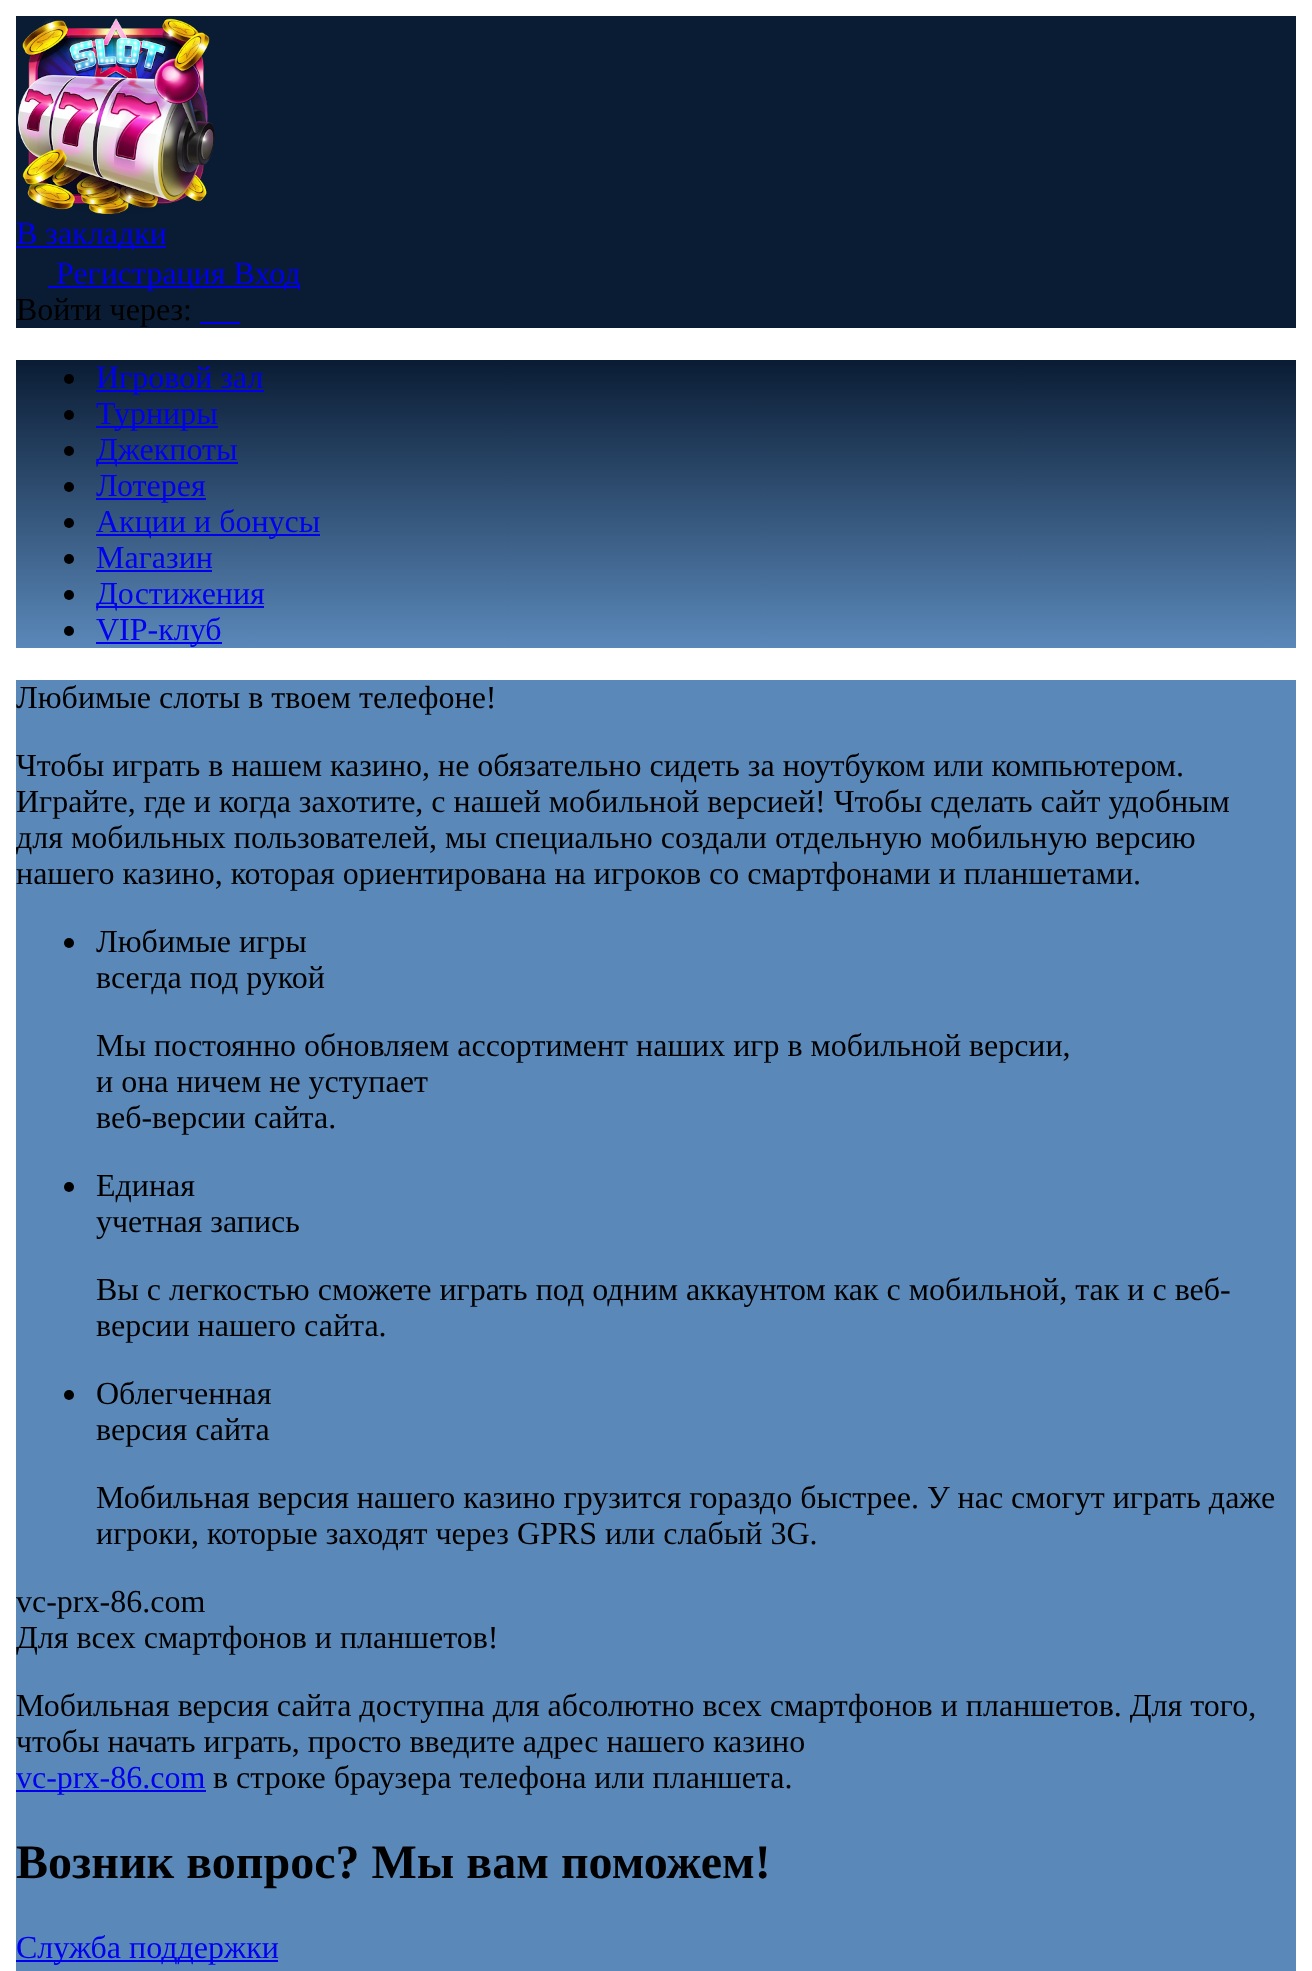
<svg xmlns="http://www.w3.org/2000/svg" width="1312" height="1971">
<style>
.a{font:32px Liberation Serif;fill:#00e}
.b{font:32px Liberation Serif;fill:#000}
.c{font:bold 48px Liberation Serif;fill:#000}
</style>
<defs>
<linearGradient id="g1" gradientUnits="userSpaceOnUse" x1="656" y1="360" x2="656" y2="648"><stop offset="0" stop-color="#0a1c34"/><stop offset="1" stop-color="#5a88b9"/></linearGradient>
</defs>
<rect width="100%" height="100%" fill="#fff"/>
<path fill="#0a1c34" d="M16 16h1280v312H16z"/>
<image href="1.png" x="17" y="18" width="198" height="196"/>
<path fill="#00e" d="M16 246h150v2H16z"/>
<path fill="#00e" d="M48 286h252v2H48z"/>
<path fill="#00e" d="M200 322h40v2H200z"/>
<path fill="url(#g1)" d="M16 360h1280v288H16z"/>
<circle fill="#000" cx="69" cy="379" r="5"/>
<path fill="#00e" d="M96 390h168v2H96z"/>
<circle fill="#000" cx="69" cy="415" r="5"/>
<path fill="#00e" d="M96 426h122v2H96z"/>
<circle fill="#000" cx="69" cy="451" r="5"/>
<path fill="#00e" d="M96 462h142v2H96z"/>
<circle fill="#000" cx="69" cy="487" r="5"/>
<path fill="#00e" d="M96 498h110v2H96z"/>
<circle fill="#000" cx="69" cy="523" r="5"/>
<path fill="#00e" d="M96 534h224v2H96z"/>
<circle fill="#000" cx="69" cy="559" r="5"/>
<path fill="#00e" d="M96 570h116v2H96z"/>
<circle fill="#000" cx="69" cy="595" r="5"/>
<path fill="#00e" d="M96 606h168v2H96z"/>
<circle fill="#000" cx="69" cy="631" r="5"/>
<path fill="#00e" d="M96 642h126v2H96z"/>
<path fill="#5a88b9" d="M16 680h1280v1291H16z"/>
<circle fill="#000" cx="69" cy="943" r="5"/>
<circle fill="#000" cx="69" cy="1187" r="5"/>
<circle fill="#000" cx="69" cy="1395" r="5"/>
<path fill="#00e" d="M16 1790h190v2H16z"/>
<path fill="#00e" d="M16 1960h262v2H16z"/>
<text class="a" x="16" y="244">В закладки</text>
<text class="a" x="56" y="284">Регистрация Вход</text>
<text class="b" x="16" y="320">Войти через:</text>
<text class="a" x="96" y="388">Игровой зал</text>
<text class="a" x="96" y="424">Турниры</text>
<text class="a" x="96" y="460">Джекпоты</text>
<text class="a" x="96" y="496">Лотерея</text>
<text class="a" x="96" y="532">Акции и бонусы</text>
<text class="a" x="96" y="568">Магазин</text>
<text class="a" x="96" y="604">Достижения</text>
<text class="a" x="96" y="640">VIP-клуб</text>
<text class="b" x="16" y="708">Любимые слоты в твоем телефоне!</text>
<text class="b" x="16" y="776">Чтобы играть в нашем казино, не обязательно сидеть за ноутбуком или компьютером.</text>
<text class="b" x="16" y="812">Играйте, где и когда захотите, с нашей мобильной версией! Чтобы сделать сайт удобным</text>
<text class="b" x="16" y="848">для мобильных пользователей, мы специально создали отдельную мобильную версию</text>
<text class="b" x="16" y="884">нашего казино, которая ориентирована на игроков со смартфонами и планшетами.</text>
<text class="b" x="96" y="952">Любимые игры</text>
<text class="b" x="96" y="988">всегда под рукой</text>
<text class="b" x="96" y="1056">Мы постоянно обновляем ассортимент наших игр в мобильной версии,</text>
<text class="b" x="96" y="1092">и она ничем не уступает</text>
<text class="b" x="96" y="1128">веб-версии сайта.</text>
<text class="b" x="96" y="1196">Единая</text>
<text class="b" x="96" y="1232">учетная запись</text>
<text class="b" x="96" y="1300">Вы с легкостью сможете играть под одним аккаунтом как с мобильной, так и с веб-</text>
<text class="b" x="96" y="1336">версии нашего сайта.</text>
<text class="b" x="96" y="1404">Облегченная</text>
<text class="b" x="96" y="1440">версия сайта</text>
<text class="b" x="96" y="1508">Мобильная версия нашего казино грузится гораздо быстрее. У нас смогут играть даже</text>
<text class="b" x="96" y="1544">игроки, которые заходят через GPRS или слабый 3G.</text>
<text class="b" x="16" y="1612">vc-prx-86.com</text>
<text class="b" x="16" y="1648">Для всех смартфонов и планшетов!</text>
<text class="b" x="16" y="1716">Мобильная версия сайта доступна для абсолютно всех смартфонов и планшетов. Для того,</text>
<text class="b" x="16" y="1752">чтобы начать играть, просто введите адрес нашего казино</text>
<text class="a" x="16" y="1788">vc-prx-86.com</text>
<text class="b" x="213" y="1788">в строке браузера телефона или планшета.</text>
<text class="c" x="16" y="1878">Возник вопрос? Мы вам поможем!</text>
<text class="a" x="16" y="1958">Служба поддержки</text>
</svg>
